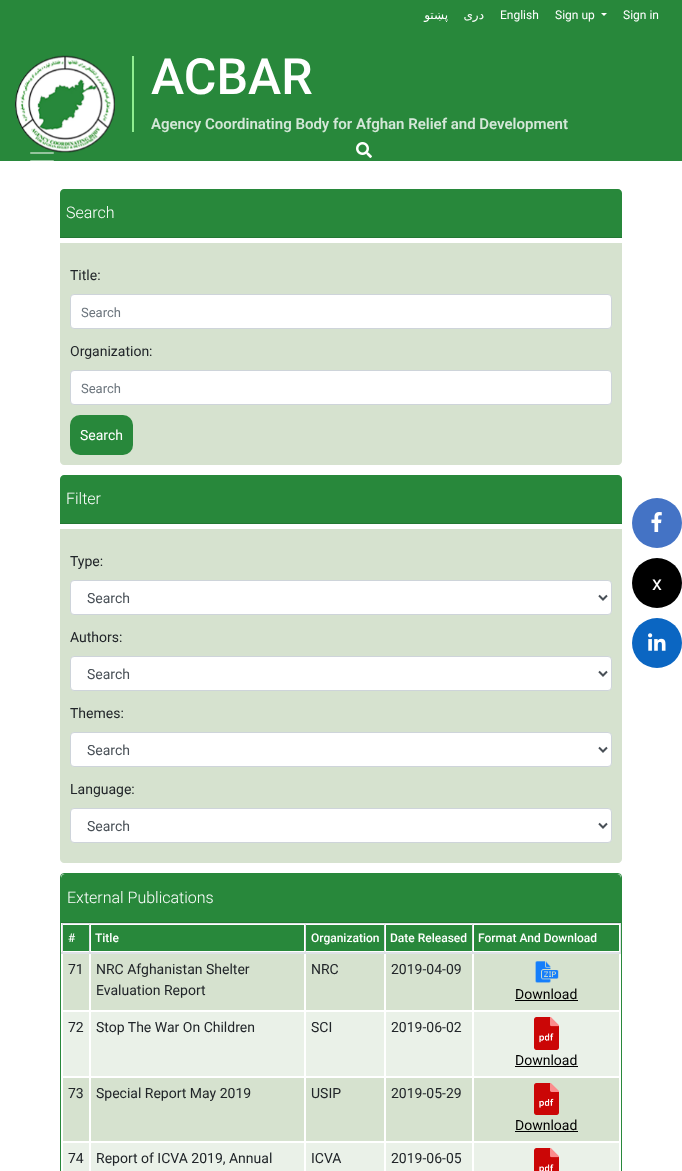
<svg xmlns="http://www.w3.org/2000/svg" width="682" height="1171">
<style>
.a{font:12px DejaVu Sans;direction:rtl;fill:#fff}
.b{font:12px Roboto;fill:#fff}
.c{font:500 50px Roboto;fill:#fff}
.d{font:600 15px Roboto;fill:#d4e7d8}
.e{font:300 16px Roboto;fill:#fff}
.f{font:14px Roboto;fill:#212529}
.g{font:13px Roboto;fill:#6c757d}
.h{font:14px Roboto;fill:#fff}
.i{font:14px Roboto;fill:#495057}
.j{font:500 12px Roboto;fill:#fff}
.k{font:14px Roboto;fill:#000}
.l{font:20px Roboto;fill:#fff}
</style>
<defs>
<clipPath id="clip1"><rect x="61" y="874" width="560" height="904" rx="3"/></clipPath>
</defs>
<rect width="100%" height="100%" fill="#fff"/>
<path fill="#28883b" d="M0 0h682v161H0z"/>
<path fill="#fff" d="M601 13h6l-3 3z"/>
<path fill="#90ee90" d="M132 56h2v76H132z"/>
<image href="1.png" x="15" y="55" width="100" height="98"/>
<image href="2.png" x="356" y="142" width="16" height="16"/>
<image href="3.png" x="30" y="152" width="24" height="9"/>
<path fill="#28883b" d="M64 189h554c2 0 4 2 4 4v45h-562v-45c0-2 2-4 4-4z"/>
<path fill="#237734" d="M60 237h562v1H60z"/>
<path fill="#d6e2cf" d="M60 243h562v218c0 2-2 4-4 4h-554c-2 0-4-2-4-4z"/>
<rect fill="#fff" stroke="#ced4da" x="70.5" y="294.5" width="541" height="34" rx="3.5"/>
<rect fill="#fff" stroke="#ced4da" x="70.5" y="370.5" width="541" height="34" rx="3.5"/>
<rect fill="#28883b" x="70" y="415" width="63" height="40" rx="10"/>
<path fill="#28883b" d="M64 475h554c2 0 4 2 4 4v45h-562v-45c0-2 2-4 4-4z"/>
<path fill="#237734" d="M60 523h562v1H60z"/>
<path fill="#d6e2cf" d="M60 529h562v330c0 2-2 4-4 4h-554c-2 0-4-2-4-4z"/>
<rect fill="#fff" stroke="#ced4da" x="70.5" y="580.5" width="541" height="34" rx="3.5"/>
<path fill="none" stroke="#495057" stroke-width="2" d="M599 595.5l4 4l4-4"/>
<rect fill="#fff" stroke="#ced4da" x="70.5" y="656.5" width="541" height="34" rx="3.5"/>
<path fill="none" stroke="#495057" stroke-width="2" d="M599 671.5l4 4l4-4"/>
<rect fill="#fff" stroke="#ced4da" x="70.5" y="732.5" width="541" height="34" rx="3.5"/>
<path fill="none" stroke="#495057" stroke-width="2" d="M599 747.5l4 4l4-4"/>
<rect fill="#fff" stroke="#ced4da" x="70.5" y="808.5" width="541" height="34" rx="3.5"/>
<path fill="none" stroke="#495057" stroke-width="2" d="M599 823.5l4 4l4-4"/>
<rect fill="none" stroke="#28883b" x="60.5" y="873.5" width="561" height="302" rx="3.5"/>
<g clip-path="url(#clip1)">
<path fill="#28883b" d="M65 874h552c2 0 4 2 4 4v45h-560v-45c0-2 2-4 4-4z"/>
</g>
<path fill="#237734" d="M61 922h560v1H61z"/>
<path fill="#28883b" d="M63 925h26v26H63z"/>
<path fill="#dee2e6" d="M472 923h149v1H472z"/>
<path fill="#dee2e6" d="M472 923h1v31H472z"/>
<path fill="#dee2e6" d="M384 923h89v1H384z"/>
<path fill="#dee2e6" d="M384 923h1v31H384z"/>
<path fill="#dee2e6" d="M305 923h80v1H305z"/>
<path fill="#dee2e6" d="M305 923h1v31H305z"/>
<path fill="#dee2e6" d="M89 923h217v1H89z"/>
<path fill="#dee2e6" d="M89 923h1v31H89z"/>
<path fill="#dee2e6" d="M62 923h28v1H62z"/>
<path fill="#dee2e6" d="M62 923h1v31H62z"/>
<path fill="#28883b" d="M91 925h213v26H91z"/>
<path fill="#28883b" d="M306 925h78v26H306z"/>
<path fill="#28883b" d="M386 925h86v26H386z"/>
<path fill="#28883b" d="M474 925h145v26H474z"/>
<path fill="#dee2e6" d="M620 923h1v31H620z"/>
<path fill="#fff" d="M62 952h1v2H62z"/>
<path fill="#fff" d="M89 952h1v2H89z"/>
<path fill="#fff" d="M305 952h1v2H305z"/>
<path fill="#fff" d="M384 952h1v2H384z"/>
<path fill="#fff" d="M620 952h1v2H620z"/>
<path fill="#fff" d="M472 952h1v2H472z"/>
<path fill="#dee2e6" d="M61 952h560v2H61z"/>
<path fill="#d6e2cf" d="M63 954h26v56H63z"/>
<path fill="#d6e2cf" d="M91 954h213v56H91z"/>
<path fill="#d6e2cf" d="M306 954h78v56H306z"/>
<path fill="#d6e2cf" d="M386 954h86v56H386z"/>
<path fill="#d6e2cf" d="M474 954h145v56H474z"/>
<image href="4.png" x="535" y="961" width="24" height="22"/>
<path fill="#000" d="M515 1000h63v1H515z"/>
<path fill="#eaf1e8" d="M63 1012h26v64H63z"/>
<path fill="#eaf1e8" d="M91 1012h213v64H91z"/>
<path fill="#eaf1e8" d="M306 1012h78v64H306z"/>
<path fill="#eaf1e8" d="M386 1012h86v64H386z"/>
<path fill="#eaf1e8" d="M474 1012h145v64H474z"/>
<image href="5.png" x="534" y="1017" width="25" height="33"/>
<path fill="#000" d="M515 1066h63v1H515z"/>
<path fill="#d6e2cf" d="M63 1078h26v63H63z"/>
<path fill="#d6e2cf" d="M91 1078h213v63H91z"/>
<path fill="#d6e2cf" d="M306 1078h78v63H306z"/>
<path fill="#d6e2cf" d="M386 1078h86v63H386z"/>
<path fill="#d6e2cf" d="M474 1078h145v63H474z"/>
<image href="6.png" x="534" y="1083" width="25" height="32"/>
<path fill="#000" d="M515 1131h63v1H515z"/>
<path fill="#eaf1e8" d="M63 1143h26v28H63z"/>
<path fill="#eaf1e8" d="M91 1143h213v28H91z"/>
<path fill="#eaf1e8" d="M306 1143h78v28H306z"/>
<path fill="#eaf1e8" d="M386 1143h86v28H386z"/>
<path fill="#eaf1e8" d="M474 1143h145v28H474z"/>
<image href="7.png" x="534" y="1148" width="25" height="23"/>
<circle fill="#4473c5" cx="657" cy="523" r="25"/>
<image href="8.png" x="651" y="512" width="11" height="20"/>
<circle fill="#000" cx="657" cy="583" r="25"/>
<circle fill="#0b66c2" cx="657" cy="643" r="25"/>
<image href="9.png" x="648" y="633" width="18" height="18"/>
<text class="a" x="448" y="19">پښتو</text>
<text class="a" x="484" y="19">دری</text>
<text class="b" x="500" y="19">English</text>
<text class="b" x="555" y="19">Sign up</text>
<text class="b" x="623" y="19">Sign in</text>
<text class="c" x="151" y="94">ACBAR</text>
<text class="d" x="151" y="129">Agency Coordinating Body for Afghan Relief and Development</text>
<text class="e" x="66" y="218">Search</text>
<text class="f" x="70" y="280">Title:</text>
<text class="g" x="81" y="317">Search</text>
<text class="f" x="70" y="356">Organization:</text>
<text class="g" x="81" y="393">Search</text>
<text class="h" x="80" y="440">Search</text>
<text class="e" x="66" y="504">Filter</text>
<text class="f" x="70" y="566">Type:</text>
<text class="i" x="87" y="603">Search</text>
<text class="f" x="70" y="642">Authors:</text>
<text class="i" x="87" y="679">Search</text>
<text class="f" x="70" y="718">Themes:</text>
<text class="i" x="87" y="755">Search</text>
<text class="f" x="70" y="794">Language:</text>
<text class="i" x="87" y="831">Search</text>
<text class="e" x="67" y="903">External Publications</text>
<text class="j" x="68" y="942">#</text>
<text class="j" x="95" y="942">Title</text>
<text class="j" x="311" y="942">Organization</text>
<text class="j" x="390" y="942">Date Released</text>
<text class="j" x="478" y="942">Format And Download</text>
<text class="f" x="68" y="974">71</text>
<text class="f" x="96" y="974">NRC Afghanistan Shelter</text>
<text class="f" x="96" y="995">Evaluation Report</text>
<text class="f" x="311" y="974">NRC</text>
<text class="f" x="391" y="974">2019-04-09</text>
<text class="k" x="515" y="999">Download</text>
<text class="f" x="68" y="1032">72</text>
<text class="f" x="96" y="1032">Stop The War On Children</text>
<text class="f" x="311" y="1032">SCI</text>
<text class="f" x="391" y="1032">2019-06-02</text>
<text class="k" x="515" y="1065">Download</text>
<text class="f" x="68" y="1098">73</text>
<text class="f" x="96" y="1098">Special Report May 2019</text>
<text class="f" x="311" y="1098">USIP</text>
<text class="f" x="391" y="1098">2019-05-29</text>
<text class="k" x="515" y="1130">Download</text>
<text class="f" x="68" y="1163">74</text>
<text class="f" x="96" y="1163">Report of ICVA 2019, Annual</text>
<text class="f" x="311" y="1163">ICVA</text>
<text class="f" x="391" y="1163">2019-06-05</text>
<text class="l" x="652" y="590">x</text>
</svg>
